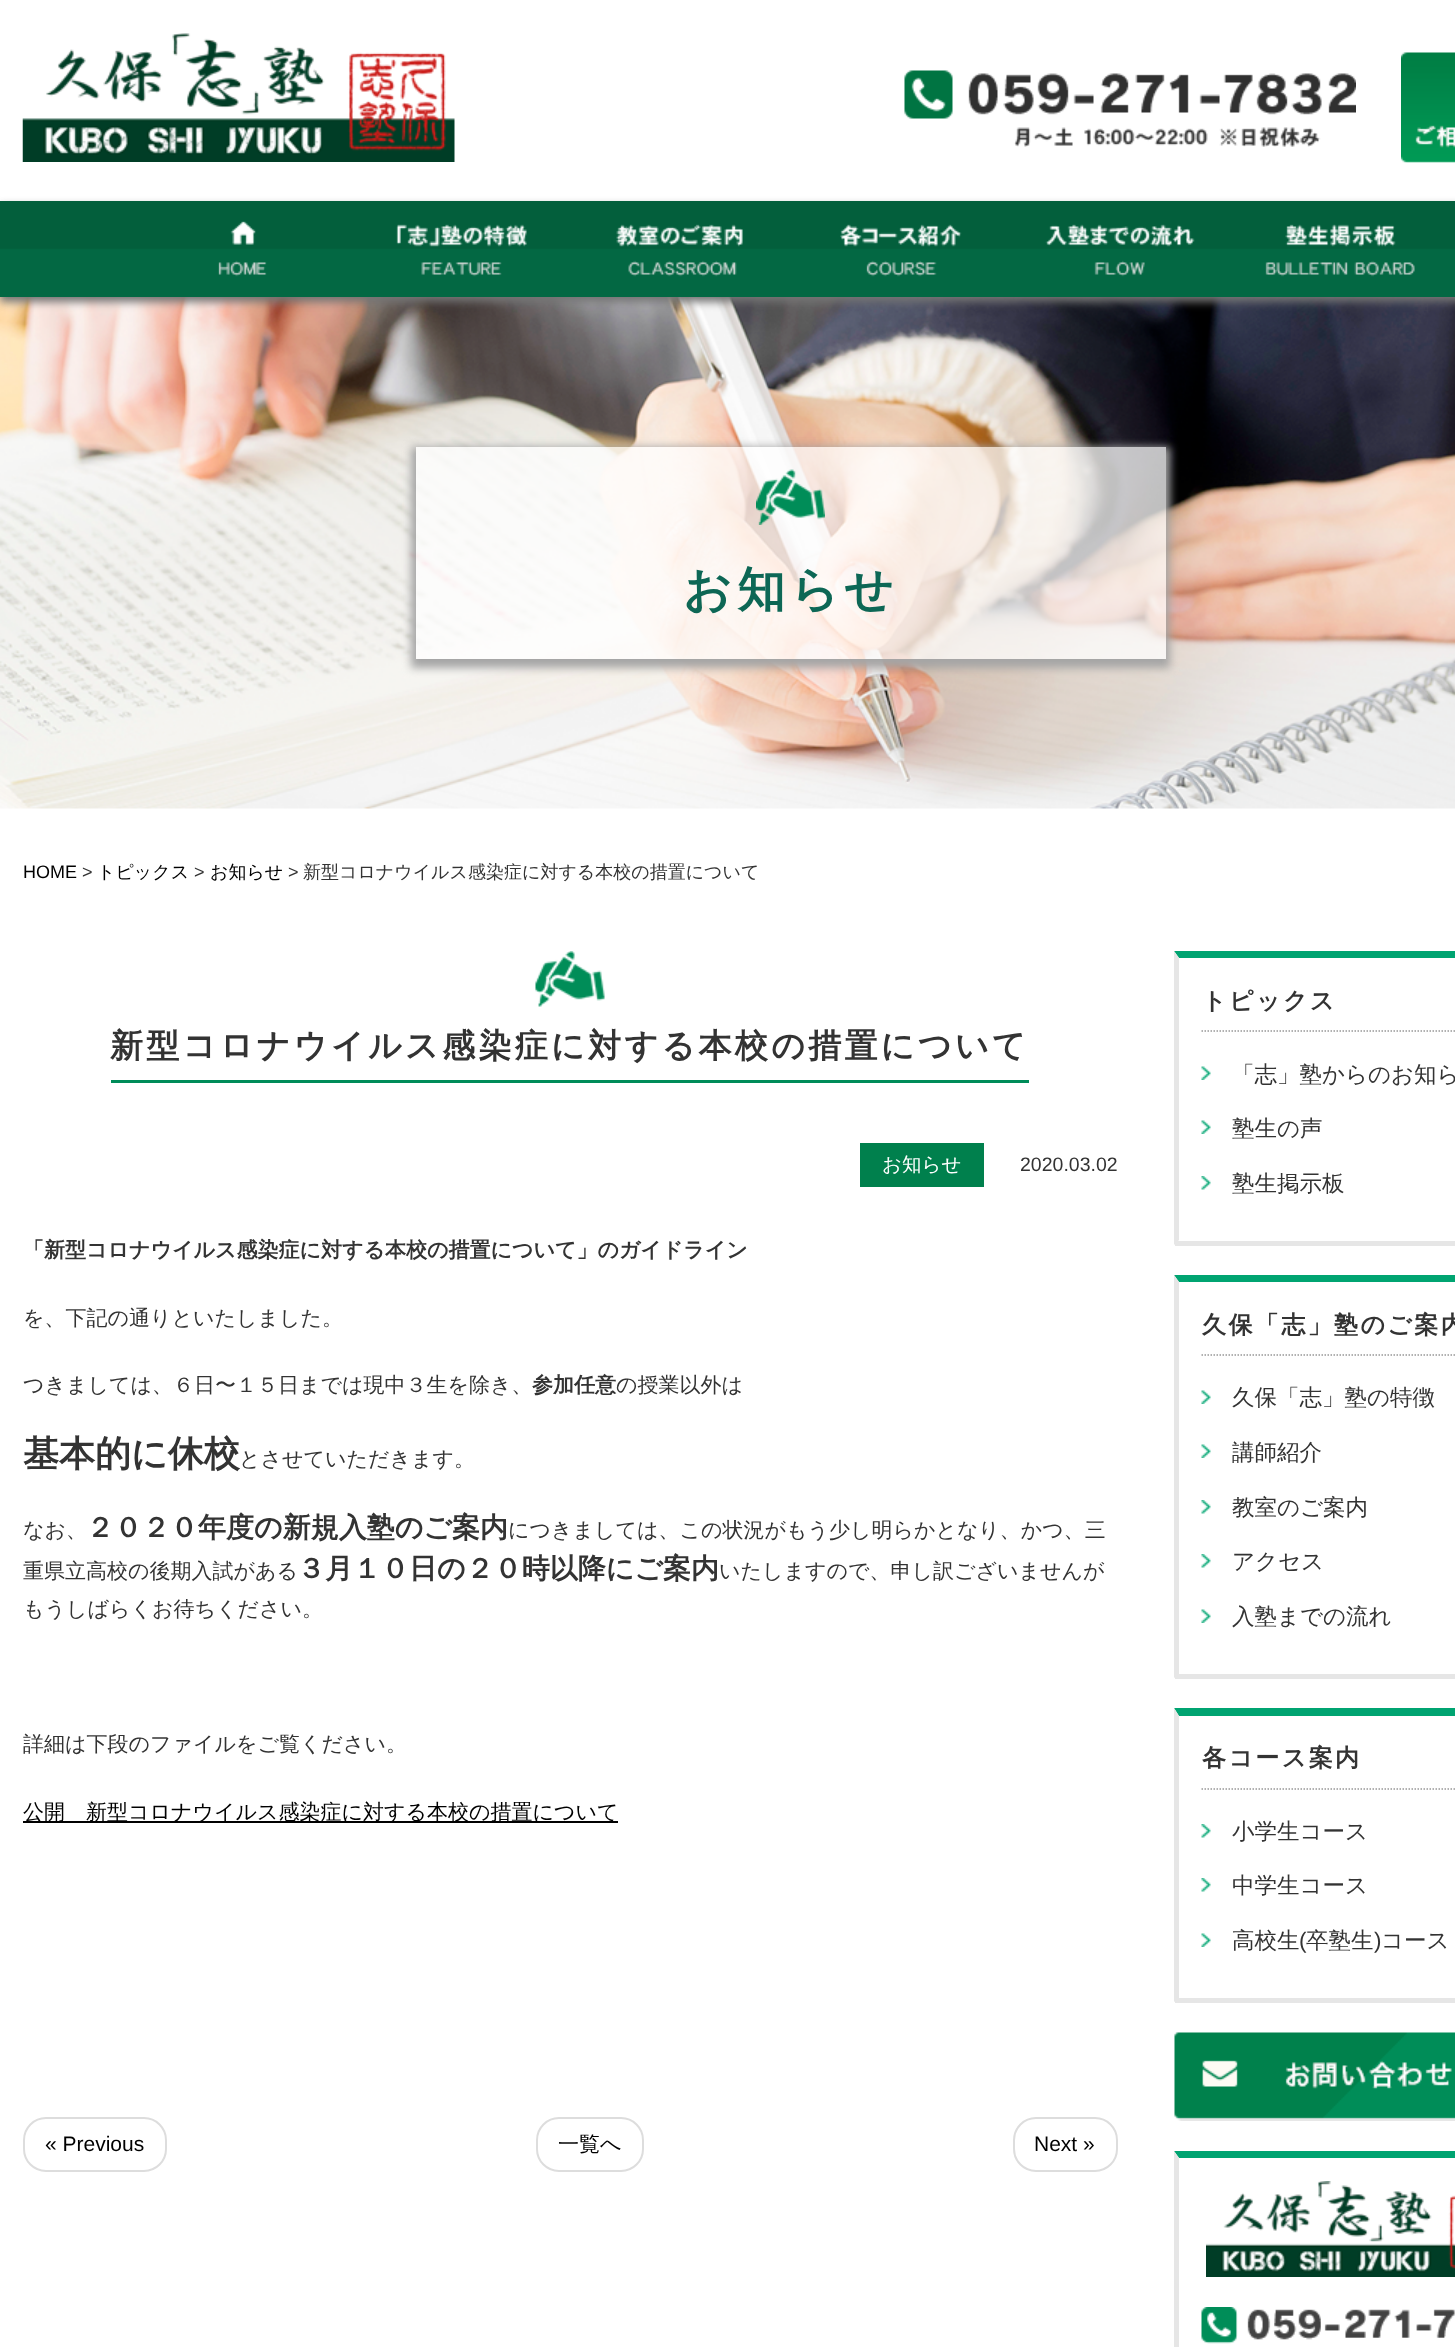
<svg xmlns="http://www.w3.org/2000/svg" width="1455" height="2347">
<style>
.a{font:bold 48px WenQuanYi Zen Hei;letter-spacing:5px;fill:#0d6755}
.b{font:18px Liberation Sans;fill:#000}
.c{font:18px Liberation Sans;fill:#333}
.d{font:500 18px WenQuanYi Zen Hei;fill:#000}
.e{font:500 18px WenQuanYi Zen Hei;fill:#333}
.f{font:bold 33px WenQuanYi Zen Hei;letter-spacing:3.3px;fill:#333}
.g{font:500 19.5px WenQuanYi Zen Hei;fill:#fff}
.h{font:19.5px Liberation Sans;fill:#333}
.i{font:bold 21px WenQuanYi Zen Hei;fill:#333}
.j{font:500 21px WenQuanYi Zen Hei;fill:#333}
.k{font:bold 36px WenQuanYi Zen Hei;fill:#333}
.l{font:bold 28px WenQuanYi Zen Hei;fill:#333}
.m{font:500 21px WenQuanYi Zen Hei;fill:#000}
.n{font:21px Liberation Sans;fill:#000}
.o{font:bold 24px WenQuanYi Zen Hei;letter-spacing:2.4px;fill:#333}
.p{font:500 22.5px WenQuanYi Zen Hei;fill:#333}
.q{font:22.5px Liberation Sans;fill:#333}
</style>
<defs>
<clipPath id="clip1"><path d="M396 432h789v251h-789zm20 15h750v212h-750z" clip-rule="evenodd"/></clipPath>
</defs>
<rect width="100%" height="100%" fill="#fff"/>
<image href="1.png" x="22" y="33" width="433" height="129"/>
<image href="2.png" x="904" y="70" width="452" height="77"/>
<image href="3.png" x="1401" y="52" width="54" height="111"/>
<image href="11.png" x="0" y="297" width="1455" height="512"/>
<path fill="#747474" filter="blur(4.5px)" d="M0 206h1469v96H0z"/>
<image href="4.png" x="0" y="201" width="1455" height="96"/>
<image href="5.png" x="218" y="221" width="49" height="56"/>
<image href="6.png" x="396" y="224" width="131" height="53"/>
<image href="7.png" x="616" y="224" width="127" height="53"/>
<image href="8.png" x="840" y="224" width="122" height="53"/>
<image href="9.png" x="1045" y="224" width="150" height="53"/>
<image href="10.png" x="1265" y="224" width="150" height="53"/>
<g clip-path="url(#clip1)">
<path fill="#a5a5a5" filter="blur(4.5px)" d="M411 447h759v221H411z"/>
</g>
<path fill="#ffffffbf" d="M416 447h750v212H416z"/>
<image href="12.png" x="756" y="469" width="69" height="56"/>
<image href="13.png" x="535" y="951" width="70" height="56"/>
<path fill="#008c59" d="M111 1080h918v3H111z"/>
<path fill="#00804d" d="M860 1143h124v44H860z"/>
<path fill="#000" d="M23 1821h595v2H23z"/>
<rect fill="none" stroke="#ddd" stroke-width="2" x="24" y="2118" width="142" height="53" rx="22"/>
<rect fill="none" stroke="#ddd" stroke-width="2" x="537" y="2118" width="106" height="53" rx="22"/>
<rect fill="none" stroke="#ddd" stroke-width="2" x="1014" y="2118" width="103" height="53" rx="22"/>
<path fill="#00a471" d="M1174 951h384l-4 7h-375z"/>
<path fill="#e6e6e6" d="M1175 1241h280v5H1175z"/>
<path fill="#e6e6e6" d="M1174 1245v-294l5 7v282z"/>
<path fill="none" stroke="#989898" stroke-width="1.5" stroke-dasharray="1.5 1.5" d="M1201.5 1031h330"/>
<image href="14.png" x="1201" y="1066" width="10" height="14"/>
<image href="14.png" x="1201" y="1120" width="10" height="14"/>
<image href="15.png" x="1201" y="1176" width="10" height="14"/>
<path fill="#00a471" d="M1174 1275h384l-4 7h-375z"/>
<path fill="#e6e6e6" d="M1175 1674h280v5H1175z"/>
<path fill="#e6e6e6" d="M1174 1678v-403l5 7v392z"/>
<path fill="none" stroke="#989898" stroke-width="1.5" stroke-dasharray="1.5 1.5" d="M1201.5 1355h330"/>
<image href="14.png" x="1201" y="1390" width="10" height="14"/>
<image href="14.png" x="1201" y="1444" width="10" height="14"/>
<image href="15.png" x="1201" y="1500" width="10" height="14"/>
<image href="15.png" x="1201" y="1554" width="10" height="14"/>
<image href="14.png" x="1201" y="1609" width="10" height="14"/>
<path fill="#00a471" d="M1174 1708h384l-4 8h-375z"/>
<path fill="#e6e6e6" d="M1175 1998h280v5H1175z"/>
<path fill="#e6e6e6" d="M1174 2002v-294l5 8v282z"/>
<path fill="none" stroke="#989898" stroke-width="1.5" stroke-dasharray="1.5 1.5" d="M1201.5 1789h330"/>
<image href="15.png" x="1201" y="1824" width="10" height="14"/>
<image href="15.png" x="1201" y="1878" width="10" height="14"/>
<image href="14.png" x="1201" y="1933" width="10" height="14"/>
<image href="16.png" x="1174" y="2032" width="281" height="89"/>
<path fill="#00a471" d="M1174 2151h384l-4 7h-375z"/>
<path fill="#e6e6e6" d="M1174 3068v-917l5 7v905z"/>
<image href="17.png" x="1206" y="2181" width="249" height="96"/>
<image href="18.png" x="1201" y="2307" width="254" height="37"/>
<text class="a" x="683" y="606">お知らせ</text>
<text class="b" x="23" y="878">HOME</text>
<text class="c" x="82" y="878">&gt;</text>
<text class="d" x="97" y="878">トピックス</text>
<text class="c" x="194" y="878">&gt;</text>
<text class="d" x="210" y="878">お知らせ</text>
<text class="c" x="288" y="878">&gt;</text>
<text class="e" x="303" y="878">新型コロナウイルス感染症に対する本校の措置について</text>
<text class="f" x="110" y="1057">新型コロナウイルス感染症に対する本校の措置について</text>
<text class="g" x="882" y="1171">お知らせ</text>
<text class="h" x="1020" y="1171">2020.03.02</text>
<text class="i" x="23" y="1257">「新型コロナウイルス感染症に対する本校の措置について」のガイドライン</text>
<text class="j" x="23" y="1325">を、下記の通りといたしました。</text>
<text class="j" x="23" y="1392">つきましては、６日〜１５日までは現中３生を除き、</text>
<text class="i" x="532" y="1392">参加任意</text>
<text class="j" x="616" y="1392">の授業以外は</text>
<text class="k" x="23" y="1466">基本的に休校</text>
<text class="j" x="239" y="1466">とさせていただきます。</text>
<text class="j" x="23" y="1537">なお、</text>
<text class="l" x="86" y="1537">２０２０年度の新規入塾のご案内</text>
<text class="j" x="508" y="1537">につきましては、この状況がもう少し明らかとなり、かつ、三</text>
<text class="j" x="23" y="1578">重県立高校の後期入試がある</text>
<text class="l" x="297" y="1578">３月１０日の２０時以降にご案内</text>
<text class="j" x="719" y="1578">いたしますので、申し訳ございませんが</text>
<text class="j" x="23" y="1616">もうしばらくお待ちください。</text>
<text class="j" x="23" y="1751">詳細は下段のファイルをご覧ください。</text>
<text class="m" x="23" y="1819">公開　新型コロナウイルス感染症に対する本校の措置について</text>
<text class="n" x="45" y="2151">« Previous</text>
<text class="m" x="558" y="2151">一覧へ</text>
<text class="n" x="1034" y="2151">Next »</text>
<text class="o" x="1202" y="1009">トピックス</text>
<text class="p" x="1232" y="1082">「志」塾からのお知ら</text>
<text class="p" x="1232" y="1136">塾生の声</text>
<text class="p" x="1232" y="1191">塾生掲示板</text>
<text class="o" x="1202" y="1333">久保「志」塾のご案内</text>
<text class="p" x="1232" y="1405">久保「志」塾の特徴</text>
<text class="p" x="1232" y="1460">講師紹介</text>
<text class="p" x="1232" y="1515">教室のご案内</text>
<text class="p" x="1232" y="1569">アクセス</text>
<text class="p" x="1232" y="1624">入塾までの流れ</text>
<text class="o" x="1202" y="1766">各コース案内</text>
<text class="p" x="1232" y="1839">小学生コース</text>
<text class="p" x="1232" y="1893">中学生コース</text>
<text class="p" x="1232" y="1948">高校生</text>
<text class="q" x="1299" y="1948">(</text>
<text class="p" x="1306" y="1948">卒塾生</text>
<text class="q" x="1374" y="1948">)</text>
<text class="p" x="1381" y="1948">コース</text>
</svg>
